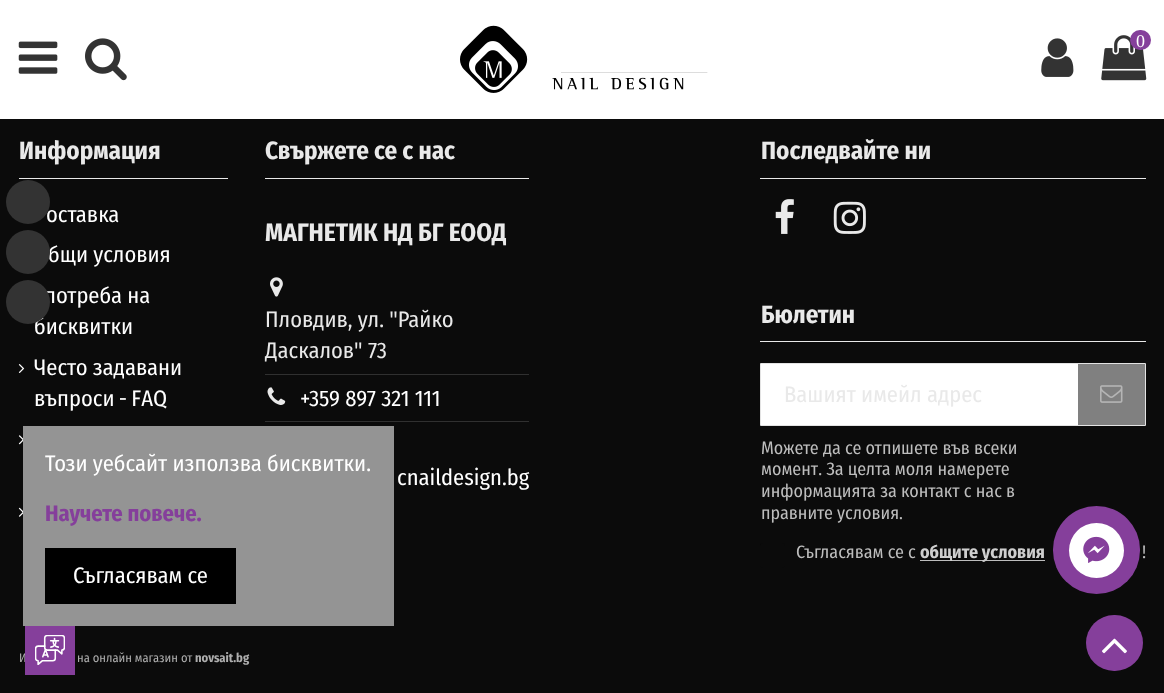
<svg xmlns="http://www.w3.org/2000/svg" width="1164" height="693">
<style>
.a{font:18px Liberation Serif;fill:#fff}
.b{font:bold 25px Fira Sans Condensed;fill:#e9e9e9}
.c{font:22.5px Fira Sans Condensed;fill:#fff}
.d{font:bold 25.25px Fira Sans Condensed;fill:#e9e9e9}
.e{font:22.5px Fira Sans Condensed;fill:#e9e9e9}
.f{font:18px Fira Sans Condensed;fill:#bdbdbd}
.g{font:bold 18px Fira Sans Condensed;fill:#cecece}
.h{font:12.5px Fira Sans Condensed;fill:#aeaeae}
.i{font:bold 12.5px Fira Sans Condensed;fill:#aeaeae}
.j{font:bold 22.5px Fira Sans Condensed;fill:#853f9b}
</style>
<rect width="100%" height="100%" fill="#0b0b0b"/>
<path fill="#fff" d="M0 0h1164v119H0z"/>
<image href="1.png" x="18" y="41" width="40" height="33"/>
<image href="2.png" x="85" y="38" width="42" height="43"/>
<image href="3.png" x="460" y="25" width="248" height="68"/>
<image href="4.png" x="1041" y="38" width="33" height="39"/>
<image href="5.png" x="1101" y="35" width="46" height="46"/>
<rect fill="#853f9b" x="1130" y="30" width="21" height="20" rx="10"/>
<path fill="#e9e9e9" d="M19 178h209v1H19z"/>
<image href="6.png" x="18" y="364" width="7" height="9"/>
<image href="7.png" x="18" y="435" width="5" height="10"/>
<image href="8.png" x="18" y="507" width="5" height="10"/>
<path fill="#e9e9e9" d="M265 178h264v1H265z"/>
<image href="9.png" x="270" y="277" width="13" height="20"/>
<path fill="#303030" d="M265 374h264v1H265z"/>
<image href="10.png" x="267" y="387" width="19" height="18"/>
<path fill="#303030" d="M265 421h264v1H265z"/>
<path fill="#e9e9e9" d="M760 178h386v1H760z"/>
<image href="11.png" x="775" y="199" width="19" height="35"/>
<image href="12.png" x="833" y="201" width="33" height="33"/>
<path fill="#e9e9e9" d="M760 341h386v1H760z"/>
<path fill="#fff" d="M761 364h317v61H761z"/>
<path fill="none" stroke="#e3e3e3" d="M760.5 363.5h385v62H760.5z"/>
<path fill="#808080" d="M1078 364h67v61H1078z"/>
<image href="13.png" x="1100" y="385" width="23" height="18"/>
<path fill="none" stroke="#020202" d="M760.5 544.5h19v19H760.5z"/>
<rect fill="#0b0b0b" x="760" y="543" width="25" height="25" rx="2.5"/>
<path fill="#bdbdbd" d="M920 560h125v1H920z"/>
<rect fill="#853f9b" x="1053" y="506" width="87" height="88" rx="43.5"/>
<circle fill="#fff" cx="1096.5" cy="550.5" r="27.5"/>
<image href="14.png" x="1083" y="536" width="27" height="27"/>
<path fill="#949494" d="M23 426h371v200H23z"/>
<path fill="#000" d="M45 548h191v56H45z"/>
<rect fill="#853f9b" x="1086" y="615" width="57" height="56" rx="28"/>
<image href="16.png" x="1102" y="638" width="25" height="16"/>
<text class="a" x="1136" y="47">0</text>
<text class="b" x="19" y="159">Информация</text>
<text class="c" x="46" y="222">оставка</text>
<circle fill="#333" cx="28" cy="202" r="22"/>
<text class="c" x="48" y="262">бщи условия</text>
<circle fill="#333" cx="28" cy="252" r="22"/>
<text class="c" x="44" y="303">потреба на</text>
<text class="c" x="34" y="334">бисквитки</text>
<circle fill="#333" cx="28" cy="302" r="22"/>
<text class="c" x="34" y="375">Често задавани</text>
<text class="c" x="34" y="406" word-spacing="-1">въпроси - FAQ</text>
<text class="b" x="265" y="159">Свържете се с нас</text>
<text class="d" x="265" y="241">МАГНЕТИК НД БГ ЕООД</text>
<text class="e" x="265" y="327">Пловдив, ул. "Райко</text>
<text class="e" x="265" y="358">Даскалов" 73</text>
<text class="c" x="300" y="406">+359 897 321 111</text>
<text class="c" x="397" y="485">cnaildesign.bg</text>
<text class="b" x="761" y="159">Последвайте ни</text>
<text class="b" x="761" y="323">Бюлетин</text>
<text class="e" x="784" y="402">Вашият имейл адрес</text>
<text class="f" x="761" y="454">Можете да се отпишете във всеки</text>
<text class="f" x="761" y="475">момент. За целта моля намерете</text>
<text class="f" x="761" y="497">информацията за контакт с нас в</text>
<text class="f" x="761" y="519">правните условия.</text>
<text class="f" x="796" y="558">Съгласявам се с</text>
<text class="g" x="920" y="558">общите условия</text>
<text class="f" x="1142" y="558">!</text>
<text class="h" x="19" y="662">И</text>
<text class="h" x="77" y="662">на онлайн магазин от</text>
<text class="i" x="195" y="662">novsait.bg</text>
<text class="c" x="45" y="471">Този уебсайт използва бисквитки.</text>
<text class="j" x="45" y="521">Научете повече.</text>
<text class="c" x="73" y="583">Съгласявам се</text>
<path fill="#853f9b" d="M25 626h50v49H25z"/>
<image href="15.png" x="35" y="635" width="30" height="30"/>
</svg>
